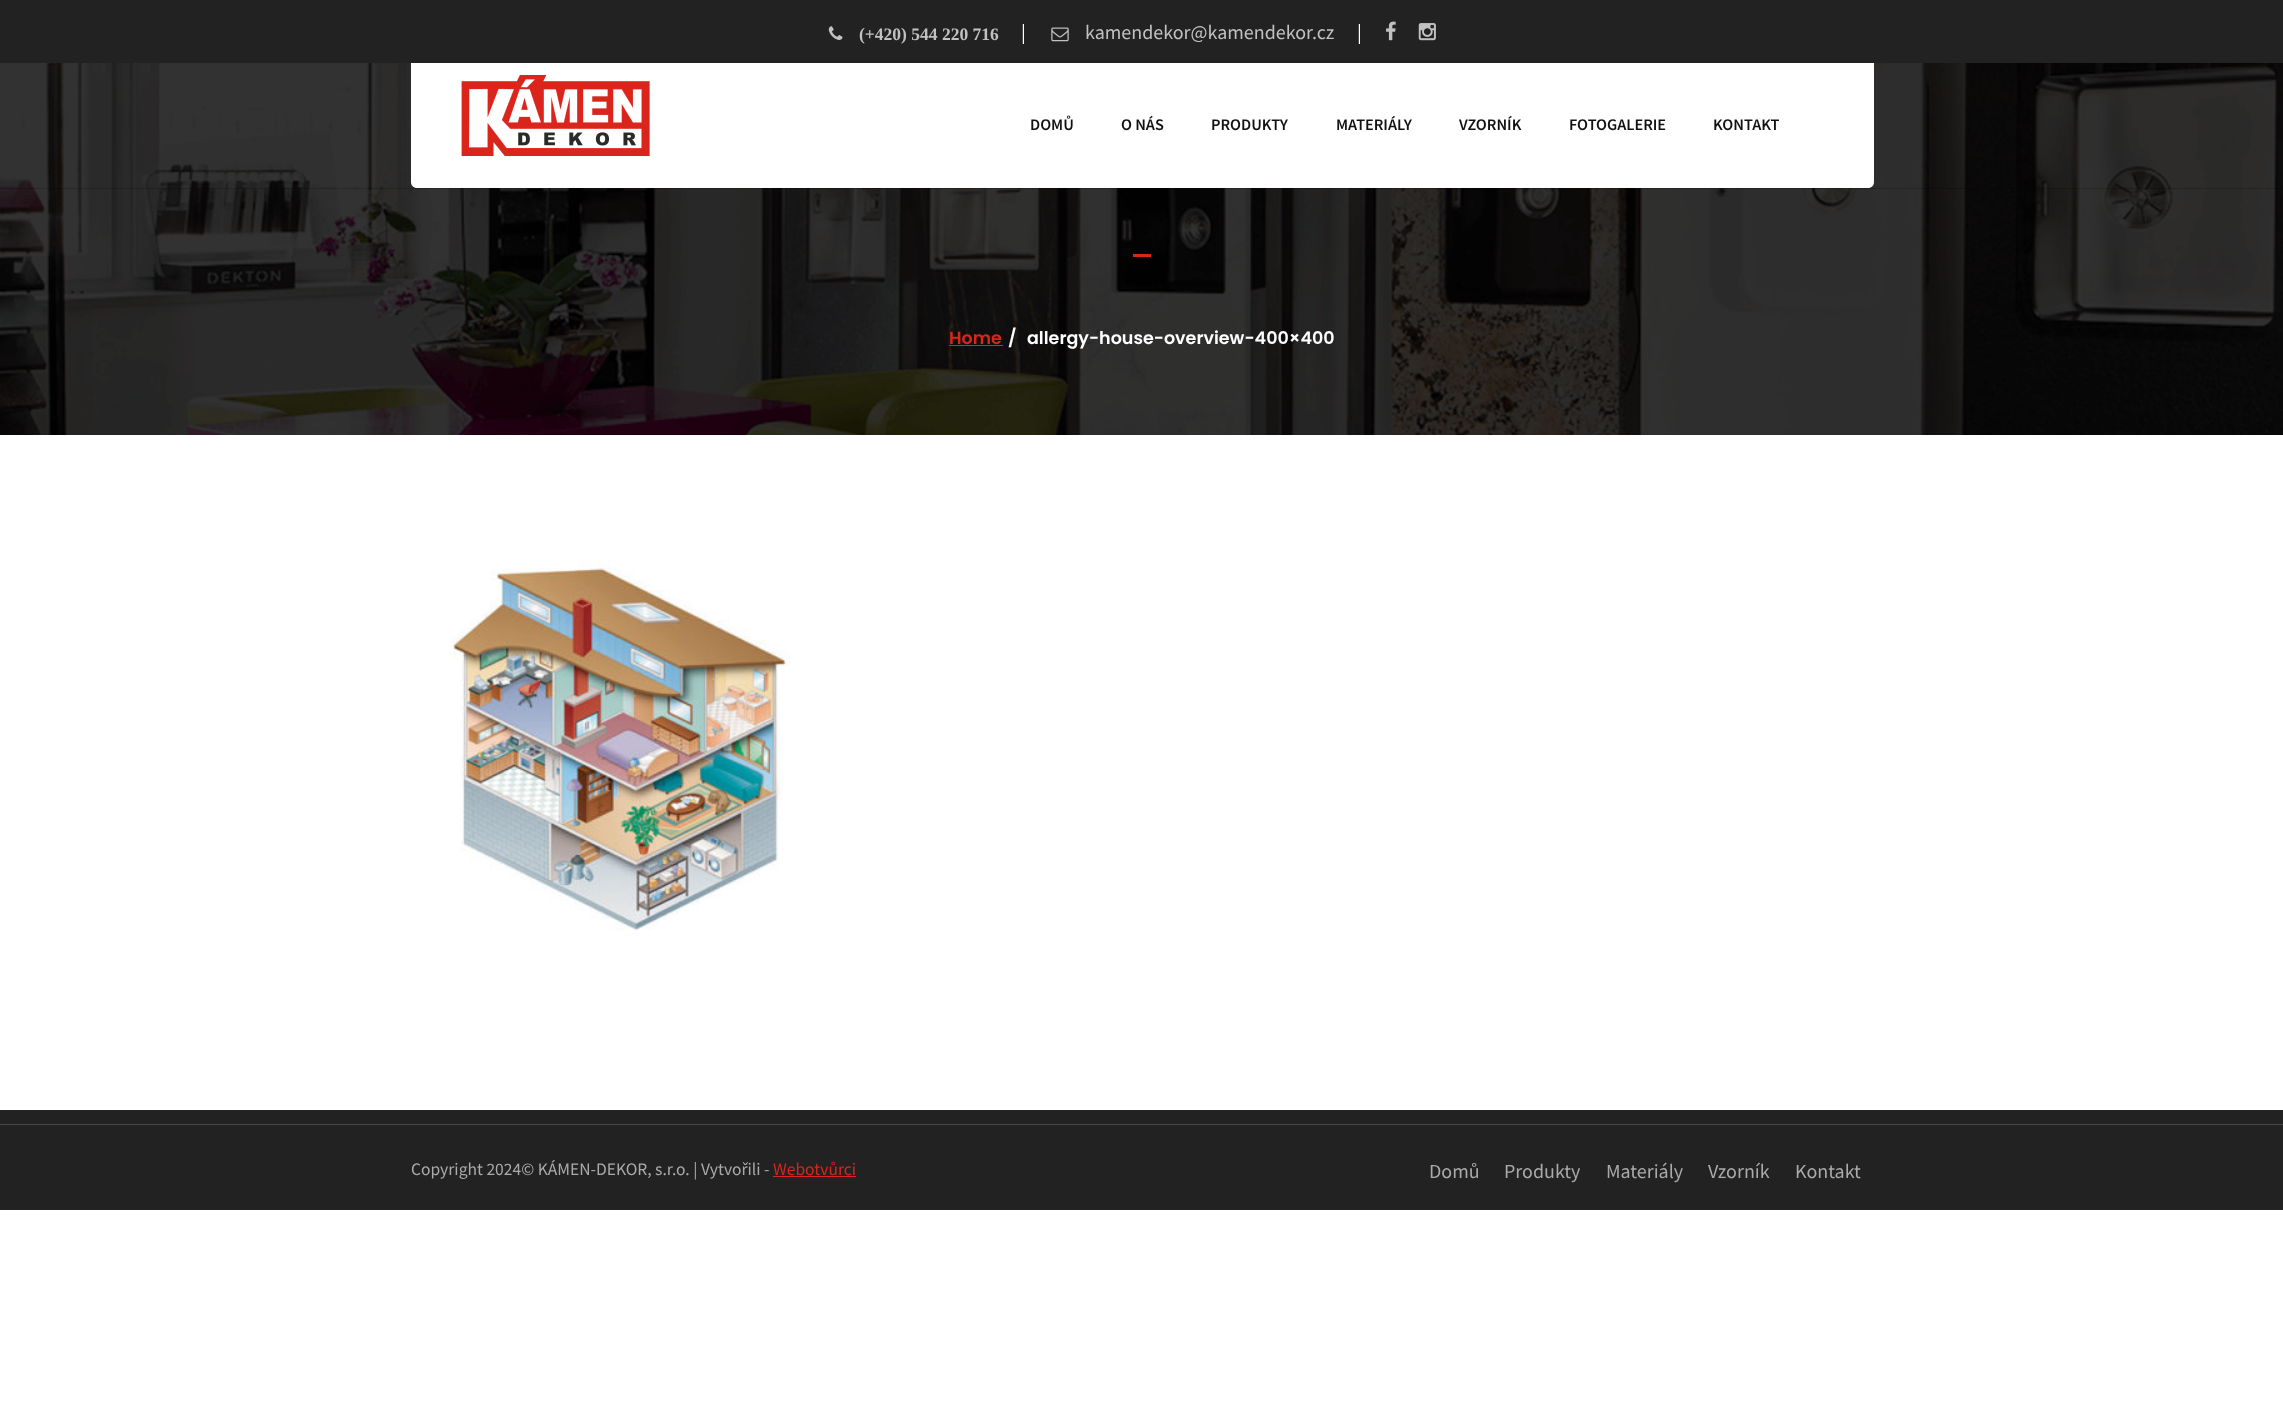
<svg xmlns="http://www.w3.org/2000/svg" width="2283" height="1401">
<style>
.a{font:bold 17.5px Liberation Serif;fill:#c1c1c1}
.b{font:20px Source Sans Pro;fill:#fff}
.c{font:20px Source Sans Pro;fill:#c1c1c1}
.d{font:600 16.25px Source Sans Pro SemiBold;fill:#111}
.e{font:600 17.5px Poppins;fill:#da251d}
.f{font:600 17.5px Poppins;fill:#fff}
.g{font:17.5px Source Sans Pro;fill:#aaa}
.h{font:17.5px Source Sans Pro;fill:#da251d}
.i{font:20px Source Sans Pro;fill:#aaa}
</style>
<rect width="100%" height="100%" fill="#fff"/>
<path fill="#222" d="M0 0h2283v63H0z"/>
<image href="1.png" x="828" y="26" width="15" height="14"/>
<image href="2.png" x="1051" y="27" width="18" height="15"/>
<image href="3.png" x="1386" y="21" width="10" height="20"/>
<image href="4.png" x="1418" y="23" width="18" height="18"/>
<image href="6.png" x="0" y="63" width="2283" height="372"/>
<path fill="#00000033" d="M0 188h2283v1H0z"/>
<path fill="#fff" d="M411 63h1463v119c0 3.5-2.5 6-6 6h-1451c-3.5 0-6-2.5-6-6z"/>
<image href="5.png" x="461" y="75" width="189" height="81"/>
<path fill="#da251d" d="M1133 254h18v3H1133z"/>
<path fill="#da251d" d="M949 345h54v1H949z"/>
<image href="7.png" x="450" y="560" width="340" height="371"/>
<path fill="#222" d="M0 1110h2283v100H0z"/>
<path fill="#474747" d="M0 1124h2283v1H0z"/>
<path fill="#da251d" d="M773 1176h83v1H773z"/>
<text class="a" x="859" y="40">(+420) 544 220 716</text>
<text class="b" x="1021" y="39">|</text>
<text class="c" x="1085" y="39">kamendekor@kamendekor.cz</text>
<text class="b" x="1357" y="39">|</text>
<text class="d" x="1030" y="130">DOMŮ</text>
<text class="d" x="1121" y="130">O NÁS</text>
<text class="d" x="1211" y="130">PRODUKTY</text>
<text class="d" x="1336" y="130">MATERIÁLY</text>
<text class="d" x="1459" y="130">VZORNÍK</text>
<text class="d" x="1569" y="130">FOTOGALERIE</text>
<text class="d" x="1713" y="130">KONTAKT</text>
<text class="e" x="949" y="344">Home</text>
<text class="f" x="1008" y="344">/</text>
<text class="f" x="1027" y="344">allergy-house-overview-400×400</text>
<text class="g" x="411" y="1175">Copyright 2024© KÁMEN-DEKOR, s.r.o. | Vytvořili -</text>
<text class="h" x="773" y="1175">Webotvůrci</text>
<text class="i" x="1429" y="1178">Domů</text>
<text class="i" x="1504" y="1178">Produkty</text>
<text class="i" x="1606" y="1178">Materiály</text>
<text class="i" x="1708" y="1178">Vzorník</text>
<text class="i" x="1795" y="1178">Kontakt</text>
</svg>
